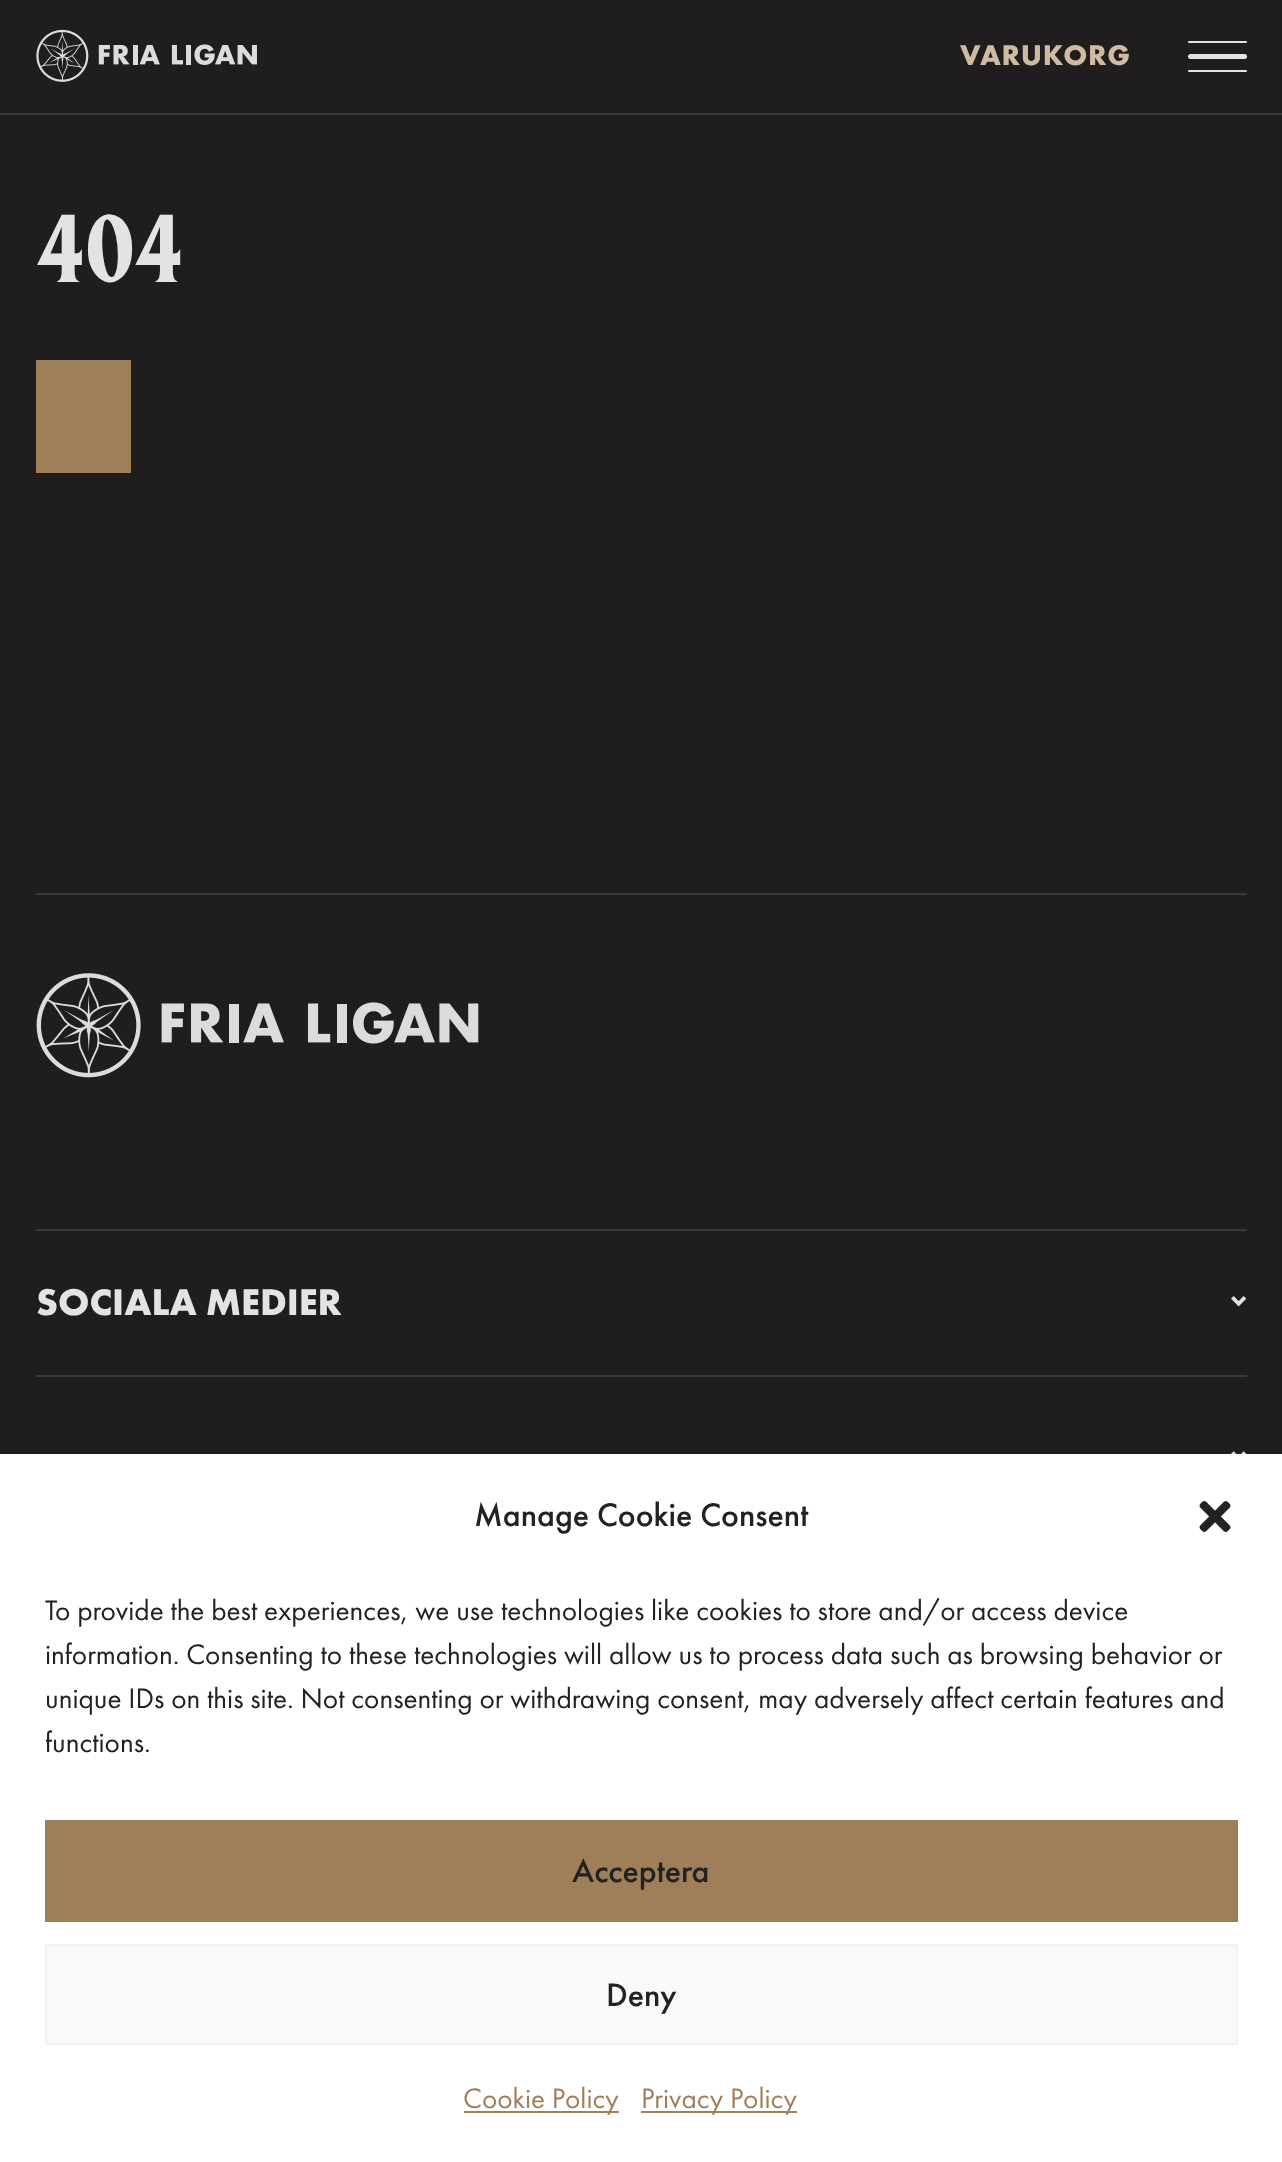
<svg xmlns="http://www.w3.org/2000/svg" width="1282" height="2162">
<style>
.a{font:bold 29.5px Futura PT;letter-spacing:0.75px;fill:#d0baa1}
.b{font:500 96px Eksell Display;fill:#e3e3e3}
.c{font:bold 38.5px Futura PT;fill:#e3e3e3}
.d{font:500 33.75px Futura PT;fill:#222}
.e{font:29.25px Futura PT;fill:#222}
.f{font:29.25px Futura PT;fill:#9f7f59}
</style>
<rect width="100%" height="100%" fill="#1f1d1d"/>
<path fill="#393939" d="M0 113h1282v2H0z"/>
<image href="1.png" x="36" y="29" width="221" height="53"/>
<rect fill="#e3e3e3" x="1188" y="41" width="59" height="2" rx="1"/>
<rect fill="#e3e3e3" x="1188" y="54" width="59" height="5" rx="2.5"/>
<rect fill="#e3e3e3" x="1188" y="70" width="59" height="2" rx="1"/>
<path fill="#9f7f59" d="M36 360h95v113H36z"/>
<path fill="#393939" d="M36 893h1211v2H36z"/>
<image href="2.png" x="36" y="973" width="443" height="105"/>
<path fill="#393939" d="M36 1229h1211v2H36z"/>
<path fill="#393939" d="M36 1375h1211v2H36z"/>
<image href="3.png" x="1231" y="1296" width="16" height="11"/>
<image href="4.png" x="1231" y="1451" width="16" height="3"/>
<path fill="#fff" d="M0 1454h1282v708H0z"/>
<image href="5.png" x="1199" y="1501" width="32" height="31"/>
<path fill="#9f7f59" d="M45 1820h1193v102H45z"/>
<path fill="#f9f9f9" stroke="#f2f2f2" stroke-width="2" d="M46 1945h1191v99H46z"/>
<path fill="#9f7f59" d="M464 2111h155v2H464z"/>
<path fill="#9f7f59" d="M641 2111h156v2H641z"/>
<text class="a" x="960" y="65">VARUKORG</text>
<text class="b" x="36" y="282">404</text>
<text class="c" x="36" y="1315">SOCIALA MEDIER</text>
<text class="d" x="474" y="1526">Manage Cookie Consent</text>
<text class="e" x="45" y="1620">To provide the best experiences, we use technologies like cookies to store and/or access device</text>
<text class="e" x="45" y="1664">information. Consenting to these technologies will allow us to process data such as browsing behavior or</text>
<text class="e" x="45" y="1708">unique IDs on this site. Not consenting or withdrawing consent, may adversely affect certain features and</text>
<text class="e" x="45" y="1752">functions.</text>
<text class="d" x="572" y="1882">Acceptera</text>
<text class="d" x="606" y="2006">Deny</text>
<text class="f" x="463" y="2108">Cookie Policy</text>
<text class="f" x="641" y="2108">Privacy Policy</text>
</svg>
